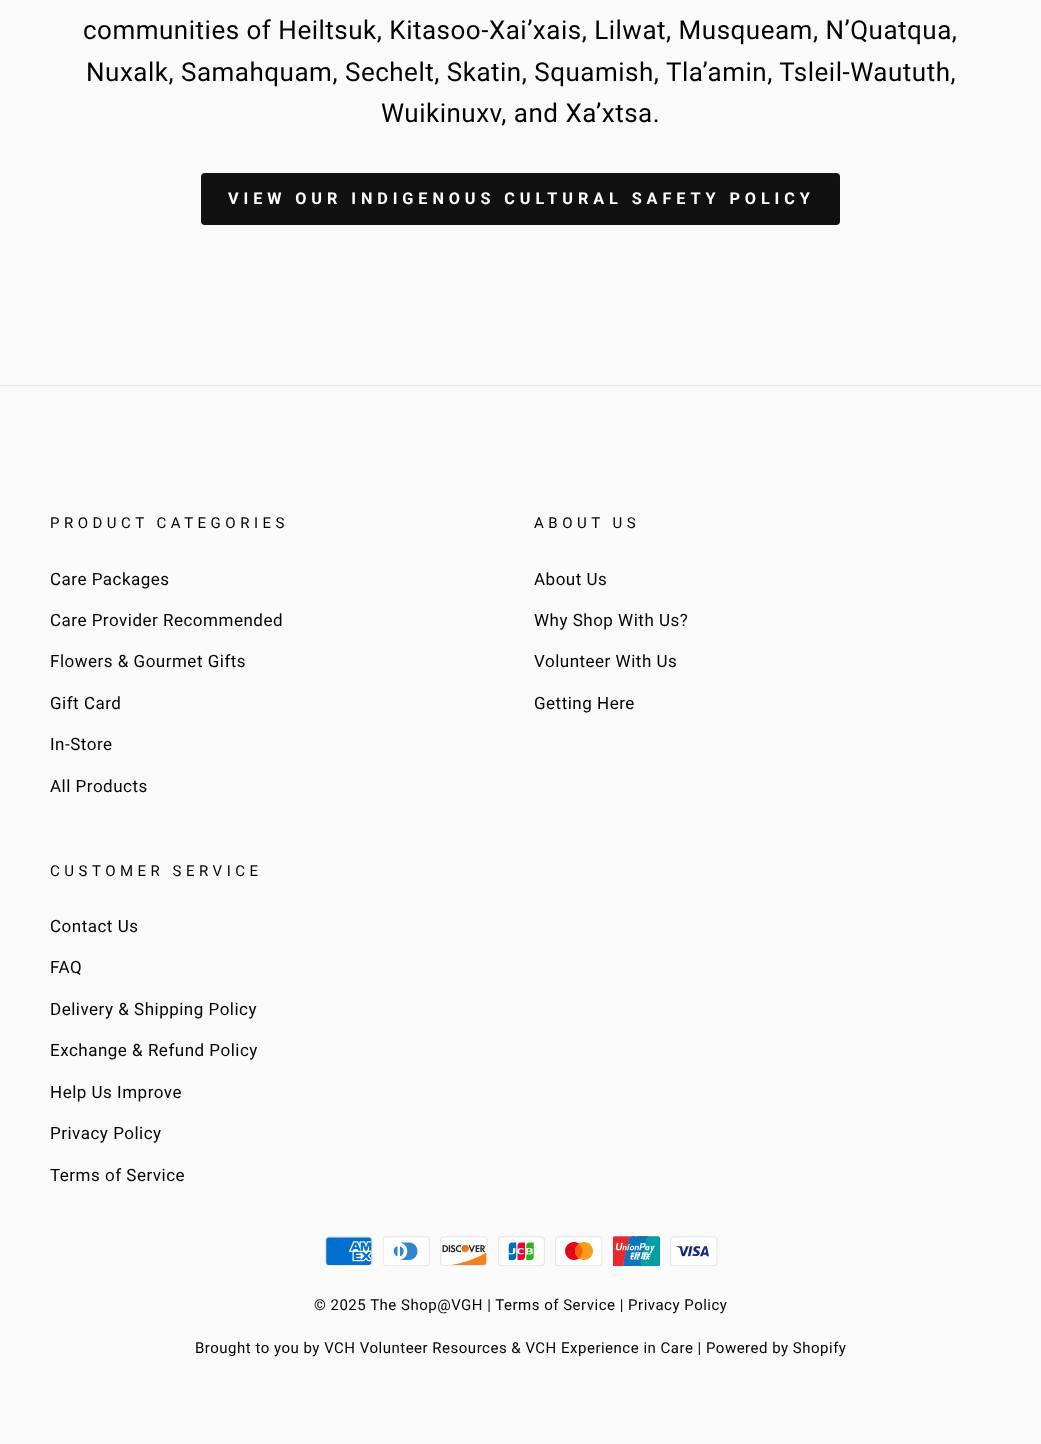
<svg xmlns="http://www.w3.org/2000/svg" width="1041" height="1444">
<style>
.a{font:26px Roboto;letter-spacing:0.5px;fill:#000}
.b{font:bold 16.25px Roboto;letter-spacing:4.9px;fill:#fff}
.c{font:15px Roboto;letter-spacing:4.5px;fill:#000}
.d{font:17px Roboto;letter-spacing:0.5px;fill:#000}
.e{font:15px Roboto;letter-spacing:0.5px;fill:#000}
</style>
<rect width="100%" height="100%" fill="#fafafa"/>
<rect fill="#111" x="201" y="173" width="639" height="52" rx="4"/>
<path fill="#e6e6e6" d="M0 385h1041v1H0z"/>
<image href="1.png" x="325" y="1236" width="48" height="30"/>
<image href="2.png" x="383" y="1236" width="47" height="30"/>
<image href="3.png" x="440" y="1236" width="48" height="30"/>
<image href="4.png" x="498" y="1236" width="47" height="30"/>
<image href="5.png" x="555" y="1236" width="48" height="30"/>
<image href="6.png" x="613" y="1236" width="47" height="30"/>
<image href="7.png" x="670" y="1236" width="48" height="30"/>
<text class="a" x="83" y="39">communities of Heiltsuk, Kitasoo-Xai’xais, Lilwat, Musqueam, N’Quatqua,</text>
<text class="a" x="86" y="81">Nuxalk, Samahquam, Sechelt, Skatin, Squamish, Tla’amin, Tsleil-Waututh,</text>
<text class="a" x="381" y="122">Wuikinuxv, and Xa’xtsa.</text>
<text class="b" x="228" y="204">VIEW OUR INDIGENOUS CULTURAL SAFETY POLICY</text>
<text class="c" x="50" y="528">PRODUCT CATEGORIES</text>
<text class="d" x="50" y="585">Care Packages</text>
<text class="d" x="50" y="626">Care Provider Recommended</text>
<text class="d" x="50" y="667">Flowers &amp; Gourmet Gifts</text>
<text class="d" x="50" y="709">Gift Card</text>
<text class="d" x="50" y="750">In-Store</text>
<text class="d" x="50" y="792">All Products</text>
<text class="c" x="534" y="528">ABOUT US</text>
<text class="d" x="534" y="585">About Us</text>
<text class="d" x="534" y="626">Why Shop With Us?</text>
<text class="d" x="534" y="667">Volunteer With Us</text>
<text class="d" x="534" y="709">Getting Here</text>
<text class="c" x="50" y="876">CUSTOMER SERVICE</text>
<text class="d" x="50" y="932">Contact Us</text>
<text class="d" x="50" y="973">FAQ</text>
<text class="d" x="50" y="1015">Delivery &amp; Shipping Policy</text>
<text class="d" x="50" y="1056">Exchange &amp; Refund Policy</text>
<text class="d" x="50" y="1098">Help Us Improve</text>
<text class="d" x="50" y="1139">Privacy Policy</text>
<text class="d" x="50" y="1181">Terms of Service</text>
<text class="e" x="314" y="1310">© 2025 The Shop@VGH | Terms of Service | Privacy Policy</text>
<text class="e" x="195" y="1353">Brought to you by VCH Volunteer Resources &amp; VCH Experience in Care | Powered by Shopify</text>
</svg>
